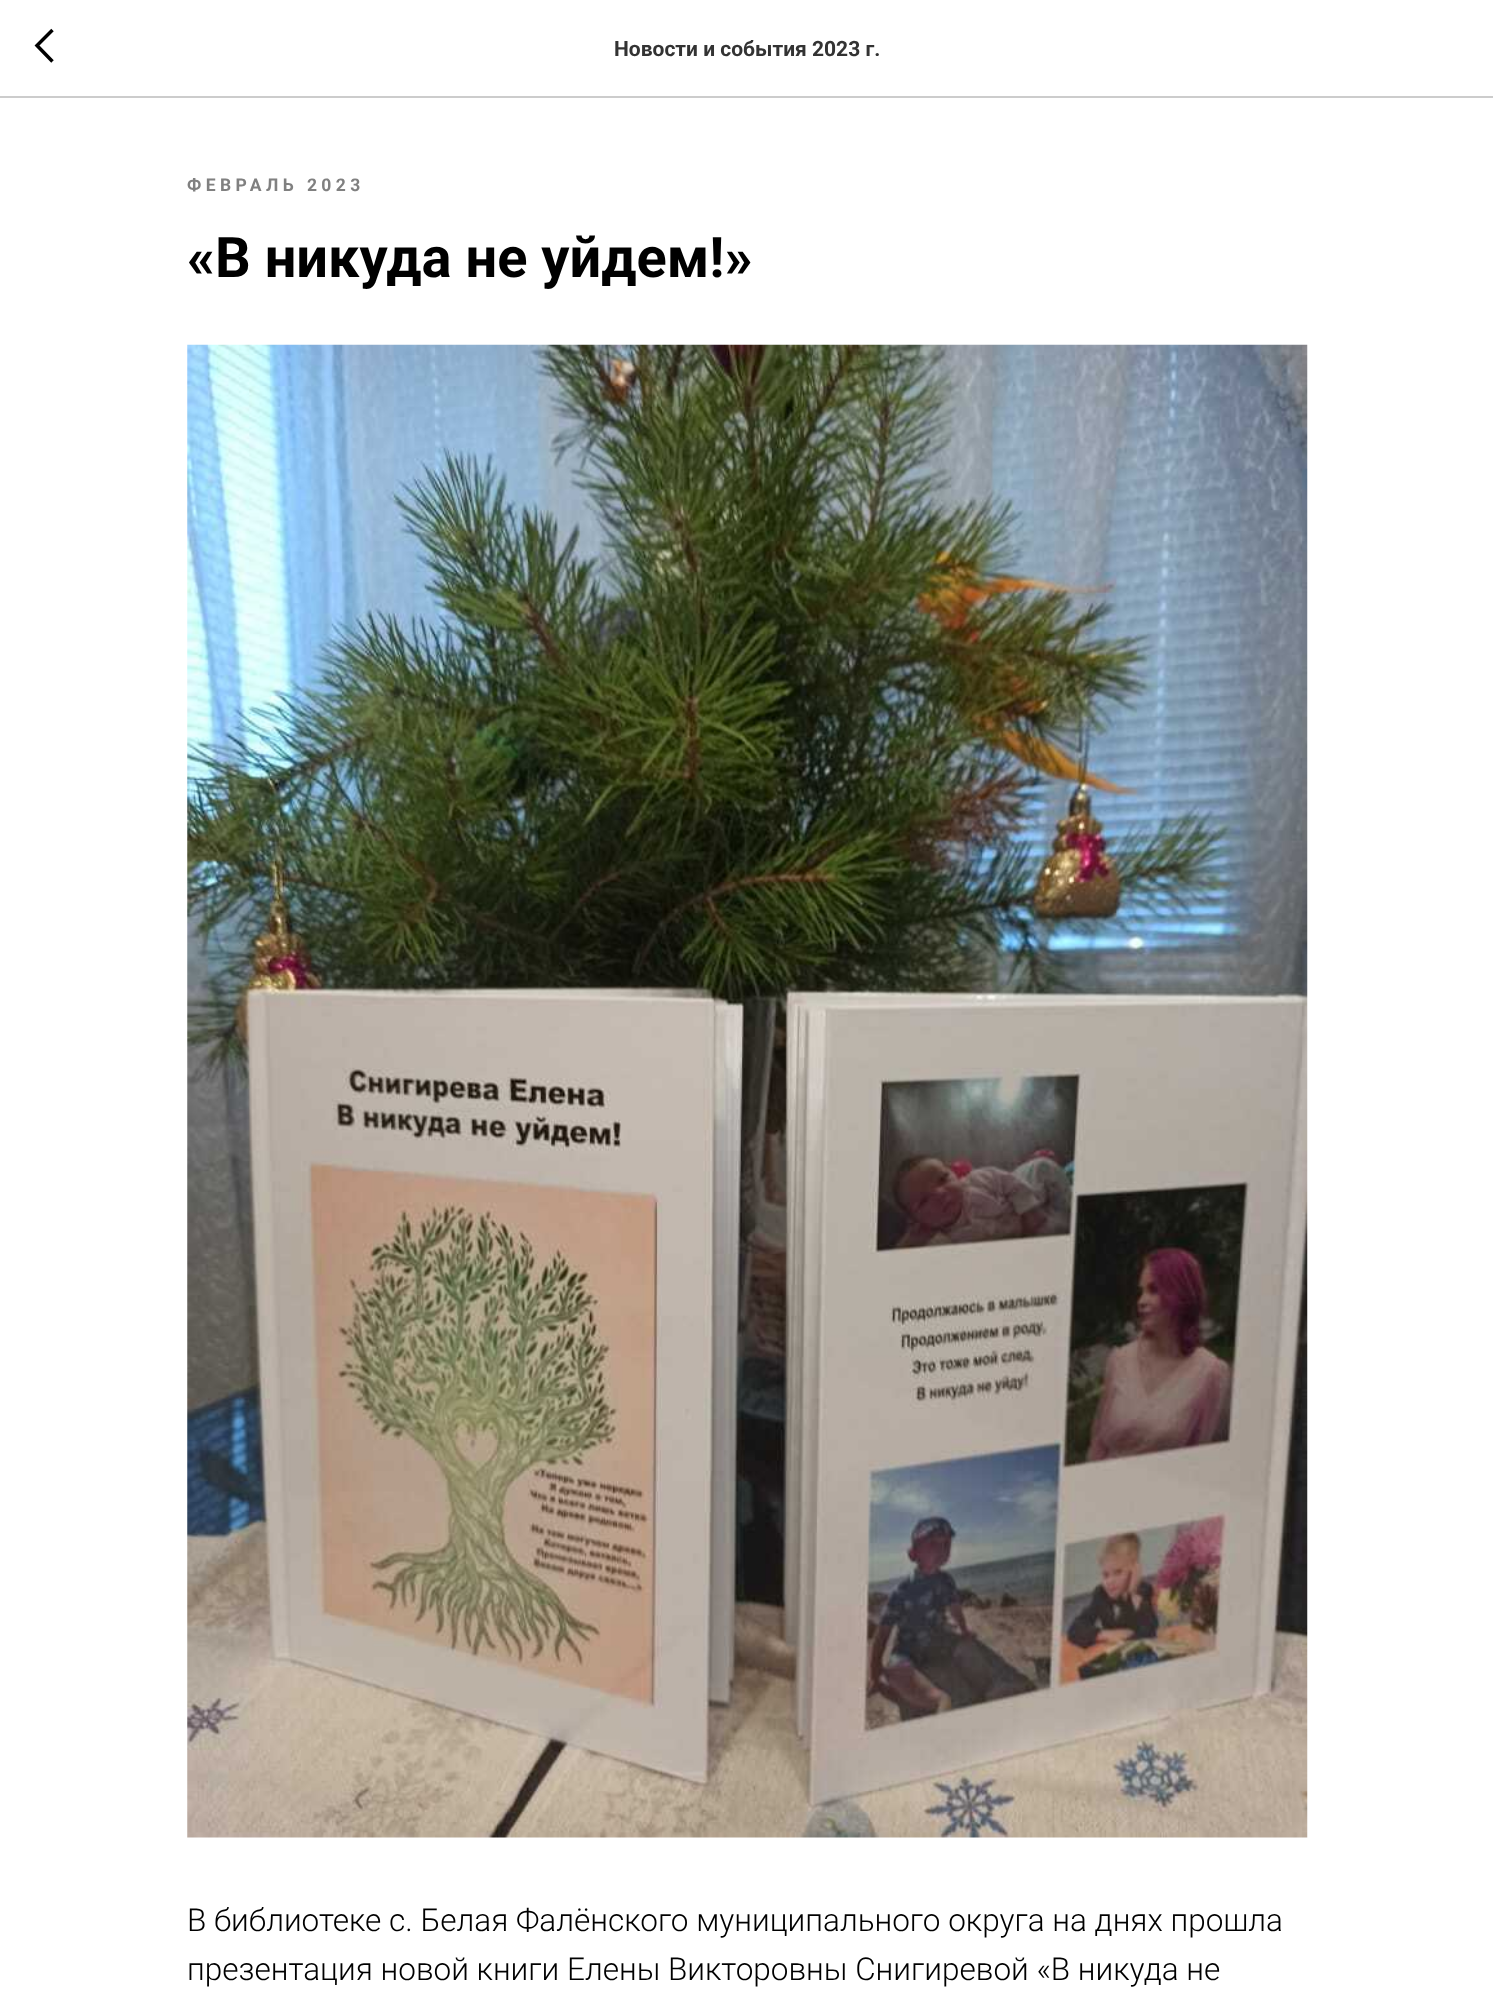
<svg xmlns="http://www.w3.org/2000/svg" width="1493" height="1997">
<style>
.a{font:bold 21px Roboto;fill:#333}
.b{font:bold 17.5px Roboto;letter-spacing:4.4px;fill:#808080}
.c{font:bold 56px Roboto;fill:#000}
.d{font:300 31.5px Roboto;fill:#000}
</style>
<rect width="100%" height="100%" fill="#fff"/>
<path fill="#ccc" d="M0 96h1493v2H0z"/>
<path fill="none" stroke="#000" stroke-width="3.5" d="M52.5 61.5l-15.5-16l15.5-15.5"/>
<image href="1.png" x="187" y="344" width="1121" height="1494"/>
<text class="a" x="614" y="56">Новости и события 2023 г.</text>
<text class="b" x="187" y="191">ФЕВРАЛЬ 2023</text>
<text class="c" x="187" y="277">«В никуда не уйдем!»</text>
<text class="d" x="187" y="1931">В библиотеке с. Белая Фалёнского муниципального округа на днях прошла</text>
<text class="d" x="187" y="1980">презентация новой книги Елены Викторовны Снигиревой «В никуда не</text>
</svg>
